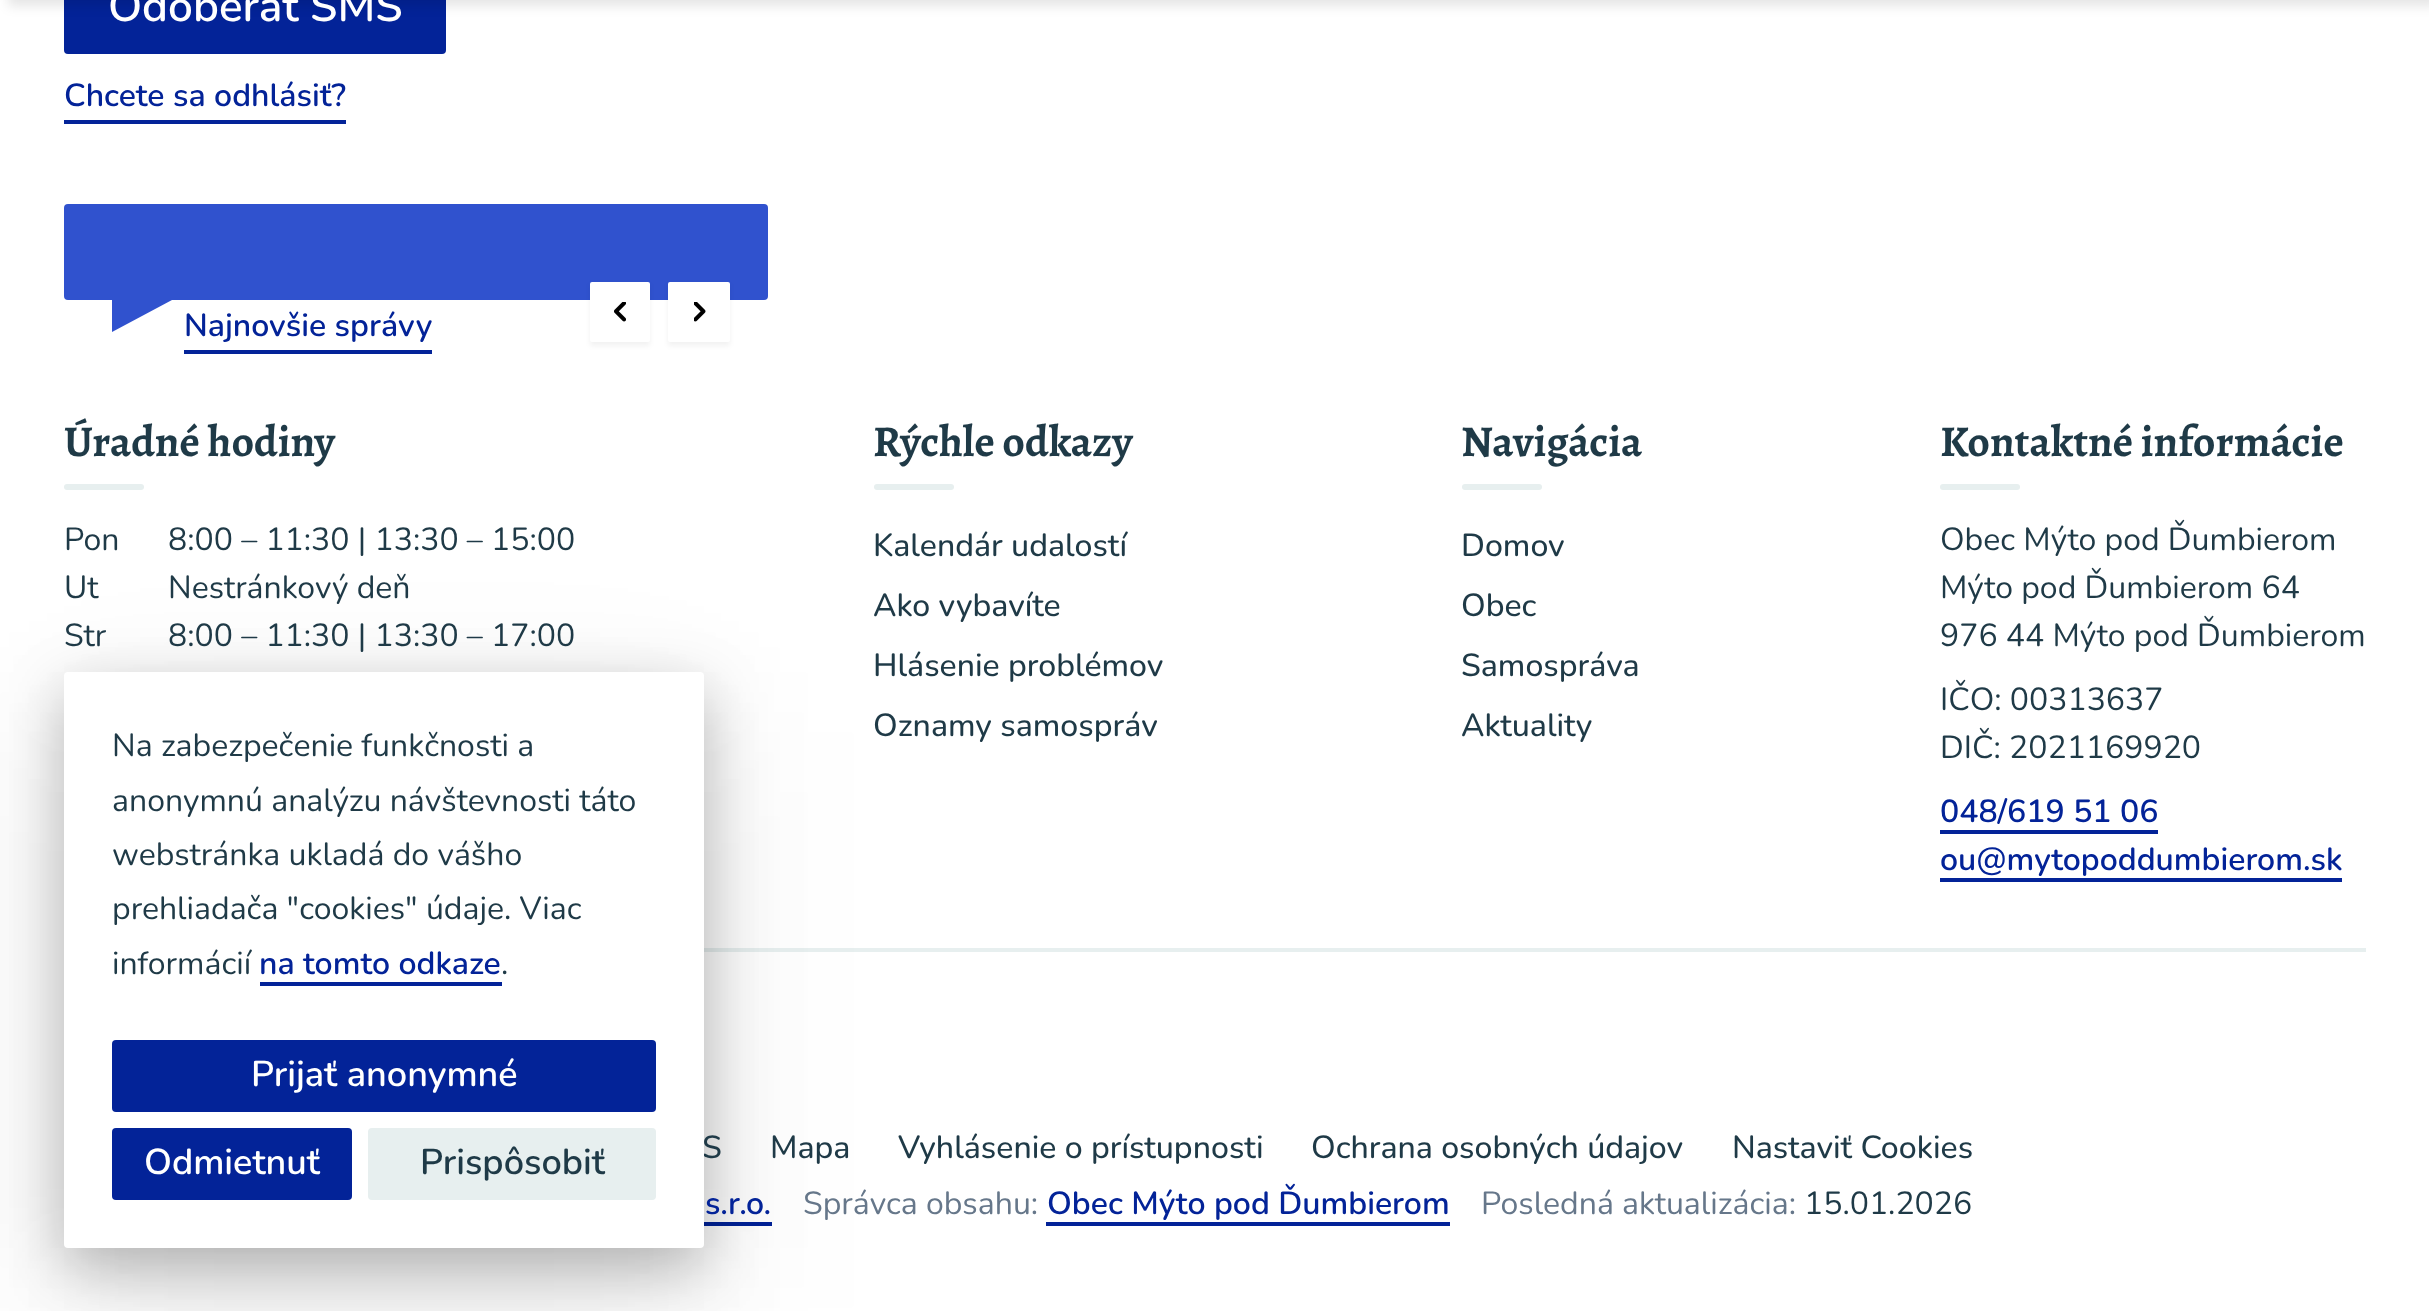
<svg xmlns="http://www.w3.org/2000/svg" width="2429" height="1311">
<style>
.a{font:600 44px Nunito;fill:#fff}
.b{font:600 32px Nunito;fill:#032398}
.c{font:bold 44px Alegreya;fill:#1f3a47}
.d{font:32px Nunito;fill:#1f3a47}
.e{font:500 32px Nunito;fill:#1f3a47}
.f{font:32px Nunito;fill:#66778a}
.g{font:600 36px Nunito;fill:#fff}
.h{font:600 36px Nunito;fill:#1f3a47}
</style>
<rect width="100%" height="100%" fill="#fff"/>
<rect fill="#032398" x="64" y="-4" width="382" height="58" rx="4"/>
<path fill="#0000001a" filter="blur(6px)" d="M8 -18h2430v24H8z"/>
<path fill="#032398" d="M64 120h282v4H64z"/>
<rect fill="#3052ce" x="64" y="204" width="704" height="96" rx="4"/>
<path fill="#3052ce" d="M112 300h60l-60 32z"/>
<path fill="#032398" d="M184 350h248v4H184z"/>
<rect fill="#0000000d" filter="blur(2.5px)" x="590" y="284" width="60" height="62" rx="2"/>
<rect fill="#fff" x="590" y="282" width="60" height="60" rx="2"/>
<image href="1.png" x="614" y="302" width="12" height="20"/>
<rect fill="#0000000d" filter="blur(2.5px)" x="668" y="284" width="62" height="62" rx="2"/>
<rect fill="#fff" x="668" y="282" width="62" height="60" rx="2"/>
<image href="2.png" x="694" y="302" width="12" height="20"/>
<rect fill="#e7efef" x="64" y="484" width="80" height="6" rx="3"/>
<rect fill="#e7efef" x="874" y="484" width="80" height="6" rx="3"/>
<rect fill="#e7efef" x="1462" y="484" width="80" height="6" rx="3"/>
<rect fill="#e7efef" x="1940" y="484" width="80" height="6" rx="3"/>
<path fill="#032398" d="M1940 830h218v4H1940z"/>
<path fill="#032398" d="M1940 878h402v4H1940z"/>
<path fill="#e7efef" d="M704 948h1662v4H704z"/>
<path fill="#032398" d="M704 1222h68v4H704z"/>
<path fill="#032398" d="M1046 1222h404v4H1046z"/>
<rect fill="#0000000d" filter="blur(90px)" x="64" y="732" width="640" height="576" rx="4"/>
<rect fill="#0000000d" filter="blur(60px)" x="64" y="712" width="640" height="576" rx="4"/>
<rect fill="#00000040" filter="blur(30px)" x="64" y="692" width="640" height="576" rx="4"/>
<text class="a" x="108" y="21">Odoberať SMS</text>
<text class="b" x="64" y="106">Chcete sa odhlásiť?</text>
<text class="b" x="184" y="336">Najnovšie správy</text>
<text class="c" x="64" y="456">Úradné hodiny</text>
<text class="d" x="64" y="550">Pon</text>
<text class="d" x="168" y="550">8:00 – 11:30 | 13:30 – 15:00</text>
<text class="d" x="64" y="598">Ut</text>
<text class="d" x="168" y="598">Nestránkový deň</text>
<text class="d" x="64" y="646">Str</text>
<text class="d" x="168" y="646">8:00 – 11:30 | 13:30 – 17:00</text>
<text class="c" x="873" y="456">Rýchle odkazy</text>
<text class="e" x="873" y="556">Kalendár udalostí</text>
<text class="e" x="873" y="616">Ako vybavíte</text>
<text class="e" x="873" y="676">Hlásenie problémov</text>
<text class="e" x="873" y="736">Oznamy samospráv</text>
<text class="c" x="1461" y="456">Navigácia</text>
<text class="e" x="1461" y="556">Domov</text>
<text class="e" x="1461" y="616">Obec</text>
<text class="e" x="1461" y="676">Samospráva</text>
<text class="e" x="1461" y="736">Aktuality</text>
<text class="c" x="1940" y="456">Kontaktné informácie</text>
<text class="d" x="1940" y="550">Obec Mýto pod Ďumbierom</text>
<text class="d" x="1940" y="598">Mýto pod Ďumbierom 64</text>
<text class="d" x="1940" y="646">976 44 Mýto pod Ďumbierom</text>
<text class="d" x="1940" y="710">IČO: 00313637</text>
<text class="d" x="1940" y="758">DIČ: 2021169920</text>
<text class="b" x="1940" y="822">048/619 51 06</text>
<text class="b" x="1940" y="870">ou@mytopoddumbierom.sk</text>
<text class="e" x="702" y="1158">S</text>
<text class="e" x="770" y="1158">Mapa</text>
<text class="e" x="898" y="1158">Vyhlásenie o prístupnosti</text>
<text class="e" x="1311" y="1158">Ochrana osobných údajov</text>
<text class="e" x="1732" y="1158">Nastaviť Cookies</text>
<text class="b" x="705" y="1214">s.r.o.</text>
<text class="f" x="803" y="1214">Správca obsahu:</text>
<text class="b" x="1047" y="1214">Obec Mýto pod Ďumbierom</text>
<text class="f" x="1481" y="1214">Posledná aktualizácia:</text>
<text class="d" x="1804" y="1214">15.01.2026</text>
<rect fill="#fff" x="64" y="672" width="640" height="576" rx="4"/>
<text class="d" x="112" y="756">Na zabezpečenie funkčnosti a</text>
<text class="d" x="112" y="811">anonymnú analýzu návštevnosti táto</text>
<text class="d" x="112" y="865">webstránka ukladá do vášho</text>
<text class="d" x="112" y="919">prehliadača "cookies" údaje. Viac</text>
<text class="d" x="112" y="974">informácií</text>
<text class="b" x="259" y="974">na tomto odkaze</text>
<path fill="#032398" d="M260 982h242v4H260z"/>
<text class="d" x="501" y="974">.</text>
<rect fill="#032398" x="112" y="1040" width="544" height="72" rx="4"/>
<text class="g" x="251" y="1086">Prijať anonymné</text>
<rect fill="#032398" x="112" y="1128" width="240" height="72" rx="4"/>
<text class="g" x="144" y="1174">Odmietnuť</text>
<rect fill="#e7efef" x="368" y="1128" width="288" height="72" rx="4"/>
<text class="h" x="420" y="1174">Prispôsobiť</text>
</svg>
